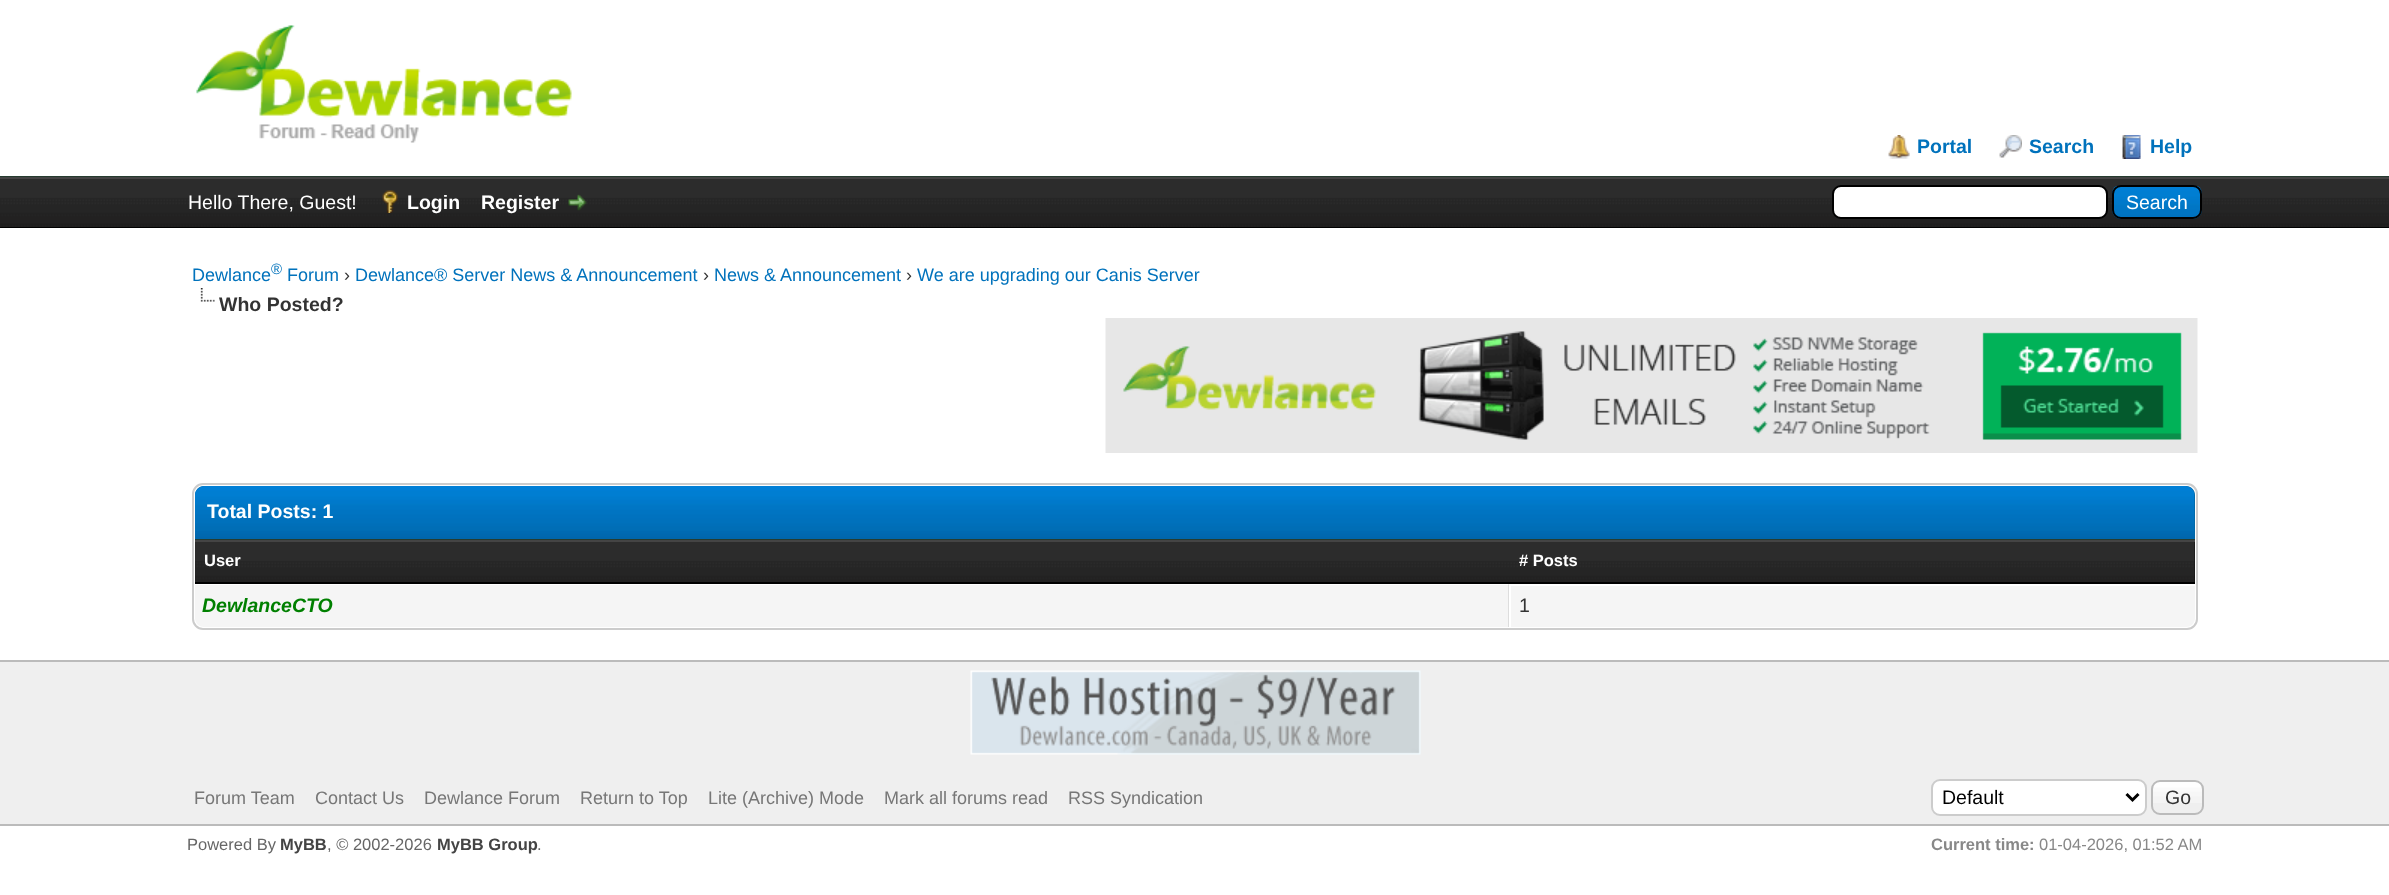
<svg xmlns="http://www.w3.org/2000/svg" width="2389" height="895">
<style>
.a{font:bold 19.5px Liberation Sans;fill:#0072bc}
.b{font:19.5px Liberation Sans;fill:#fff}
.c{font:bold 19.5px Liberation Sans;fill:#fff}
.d{font:18px Liberation Sans;fill:#0072bc}
.e{font:15px Liberation Sans;fill:#0072bc}
.f{font:18px Liberation Sans;fill:#333}
.g{font:bold 19.5px Liberation Sans;fill:#333}
.h{font:bold 16.5px Liberation Sans;fill:#fff}
.i{font:italic bold 19.5px Liberation Sans;fill:#008000}
.j{font:19.5px Liberation Sans;fill:#333}
.k{font:18px Liberation Sans;fill:#777}
.l{font:19.5px Liberation Sans;fill:#000}
.m{font:16.5px Liberation Sans;fill:#666}
.n{font:bold 16.5px Liberation Sans;fill:#444}
.o{font:bold 16.5px Liberation Sans;fill:#888}
.p{font:16.5px Liberation Sans;fill:#888}
</style>
<rect width="100%" height="100%" fill="#fff"/>
<path fill="#263c30" d="M0 176h2389v1H0z"/>
<image href="1.png" x="196" y="25" width="376" height="118"/>
<image href="2.png" x="1888" y="135" width="22" height="24"/>
<image href="3.png" x="1999" y="135" width="23" height="23"/>
<image href="4.png" x="2122" y="135" width="19" height="24"/>
<image href="5.png" x="0" y="179" width="2389" height="48"/>
<path fill="#444" d="M0 177h2389v2H0z"/>
<path fill="#000" d="M0 227h2389v1H0z"/>
<image href="6.png" x="382" y="190" width="16" height="23"/>
<image href="7.png" x="568" y="194" width="19" height="17"/>
<rect fill="#fff" stroke="#000" stroke-width="2" x="1833" y="186" width="274" height="32" rx="8"/>
<image href="8.png" x="2112" y="186" width="90" height="33"/>
<rect fill="none" stroke="#000" stroke-width="2" x="2113" y="186" width="88" height="32" rx="8"/>
<image href="9.png" x="200" y="288" width="15" height="14"/>
<image href="10.png" x="1105" y="318" width="1093" height="135"/>
<rect fill="none" stroke="#ccc" stroke-width="2" x="193" y="484" width="2004" height="145" rx="10"/>
<path fill="#0066a2" d="M204 486h1982c5 0 9 4 9 9v45h-2000v-45c0-5 4-9 9-9z"/>
<image href="11.png" x="195" y="486" width="2000" height="53"/>
<path fill="#263c30" d="M195 539h2000v1H195z"/>
<image href="12.png" x="195" y="542" width="1314" height="40"/>
<path fill="#444" d="M195 540h2000v2H195z"/>
<path fill="#000" d="M195 582h2000v2H195z"/>
<path fill="#0f0f0f" d="M2194 542h1v40H2194z"/>
<image href="13.png" x="1509" y="542" width="686" height="40"/>
<path fill="#f5f5f5" d="M195 584h1314v43h-1305c-5 0-9-4-9-9z"/>
<path fill="#fff" d="M195 584h1313v1H195z"/>
<path fill="#ddd" d="M1508 585l1-1v43h-1z"/>
<path fill="#f5f5f5" d="M1509 584h686v34c0 5-4 9-9 9h-677z"/>
<path fill="#fff" d="M1509 584h686v2H1509z"/>
<path fill="#fff" d="M1509 584h2v43H1509z"/>
<path fill="#efefef" d="M0 662h2389v162H0z"/>
<path fill="#bbb" d="M0 660h2389v2H0z"/>
<path fill="#bbb" d="M0 824h2389v2H0z"/>
<image href="14.png" x="970" y="670" width="451" height="85"/>
<rect fill="#fff" stroke="#ccc" stroke-width="2" x="1932" y="780" width="214" height="35" rx="8"/>
<path fill="none" stroke="#000" stroke-width="3" d="M2126.5 794l6 6l6-6"/>
<image href="15.png" x="2151" y="781" width="52" height="22"/>
<rect fill="none" stroke="#bbb" stroke-width="2" x="2152" y="781" width="51" height="33" rx="8"/>
<text class="a" x="1917" y="153">Portal</text>
<text class="a" x="2029" y="153">Search</text>
<text class="a" x="2150" y="153">Help</text>
<text class="b" x="188" y="209">Hello There, Guest!</text>
<text class="c" x="407" y="209">Login</text>
<text class="c" x="481" y="209">Register</text>
<text class="b" x="2126" y="209">Search</text>
<text class="d" x="192" y="281">Dewlance</text>
<text class="e" x="271" y="274">®</text>
<text class="d" x="287" y="281">Forum</text>
<text class="f" x="344" y="281">›</text>
<text class="d" x="355" y="281">Dewlance® Server News &amp; Announcement</text>
<text class="f" x="703" y="281">›</text>
<text class="d" x="714" y="281">News &amp; Announcement</text>
<text class="f" x="906" y="281">›</text>
<text class="d" x="917" y="281">We are upgrading our Canis Server</text>
<text class="g" x="219" y="311">Who Posted?</text>
<text class="c" x="207" y="518">Total Posts: 1</text>
<text class="h" x="204" y="566">User</text>
<text class="h" x="1519" y="566"># Posts</text>
<text class="i" x="202" y="612">DewlanceCTO</text>
<text class="j" x="1519" y="612">1</text>
<text class="k" x="194" y="804">Forum Team</text>
<text class="k" x="315" y="804">Contact Us</text>
<text class="k" x="424" y="804">Dewlance Forum</text>
<text class="k" x="580" y="804">Return to Top</text>
<text class="k" x="708" y="804">Lite (Archive) Mode</text>
<text class="k" x="884" y="804">Mark all forums read</text>
<text class="k" x="1068" y="804">RSS Syndication</text>
<text class="l" x="1942" y="804">Default</text>
<text class="j" x="2165" y="804">Go</text>
<text class="m" x="187" y="850">Powered By</text>
<text class="n" x="280" y="850">MyBB</text>
<text class="m" x="327" y="850">, © 2002-2026</text>
<text class="n" x="437" y="850">MyBB Group</text>
<text class="m" x="537" y="850">.</text>
<text class="o" x="1931" y="850">Current time:</text>
<text class="p" x="2039" y="850">01-04-2026, 01:52 AM</text>
</svg>
